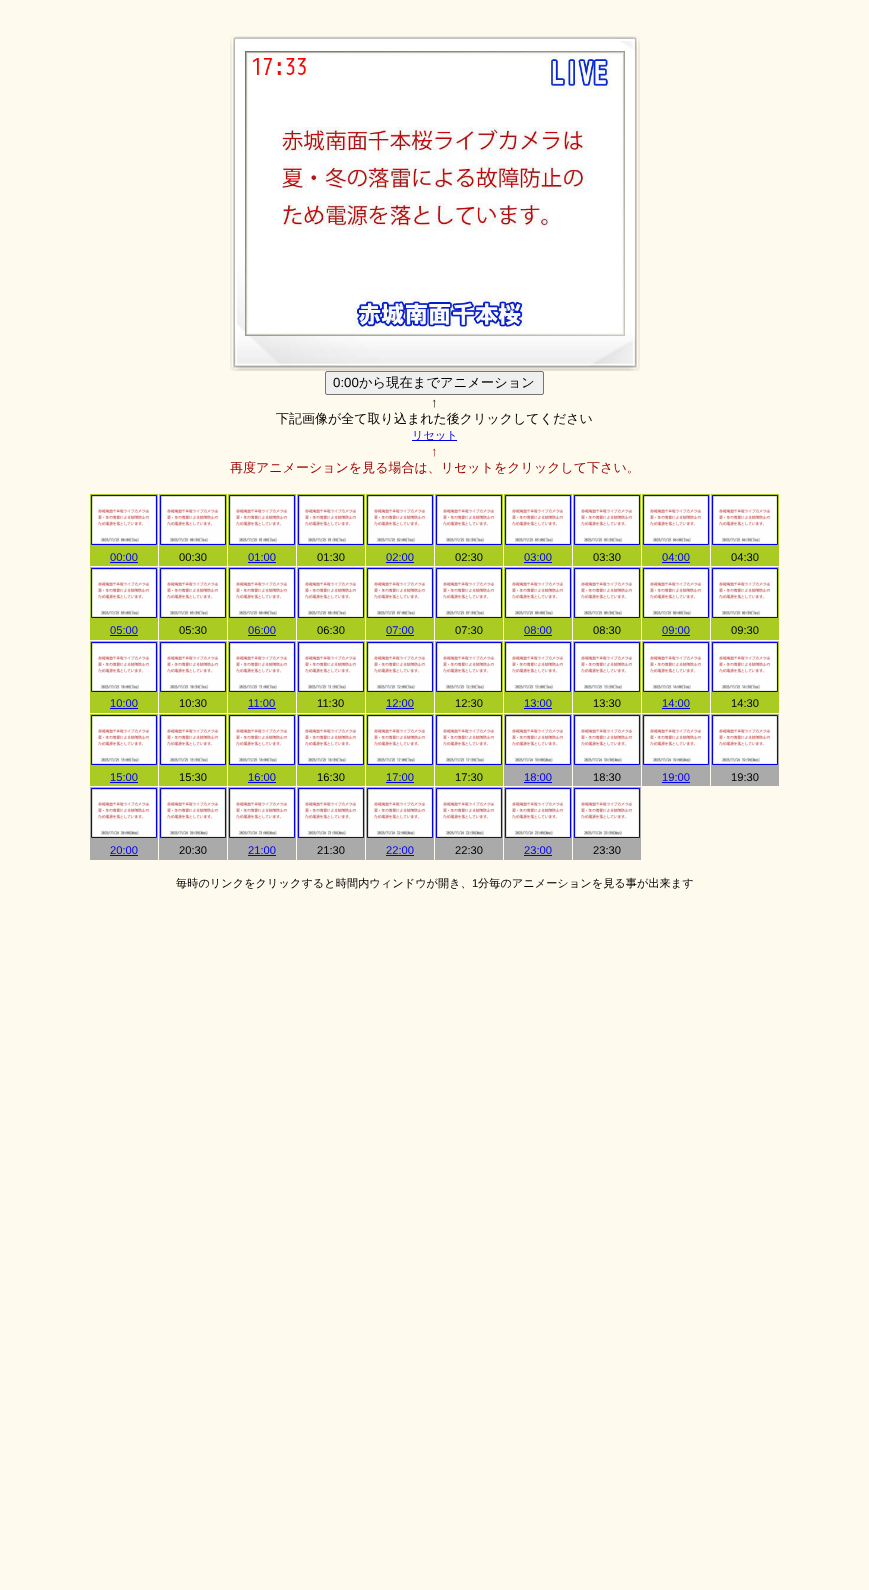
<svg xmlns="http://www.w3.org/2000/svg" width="869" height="1590">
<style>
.a{font:13.3px Liberation Sans;fill:#000}
.b{font:500 13.3px WenQuanYi Zen Hei;fill:#000}
.c{font:13px Liberation Sans;fill:#000}
.d{font:500 13px WenQuanYi Zen Hei;fill:#000}
.e{font:500 11.2px WenQuanYi Zen Hei;fill:#00e}
.f{font:13px Liberation Sans;fill:#900}
.g{font:500 13px WenQuanYi Zen Hei;fill:#900}
.h{font:11.2px Liberation Sans;fill:#00e}
.i{font:11.2px Liberation Sans;fill:#000}
.j{font:500 11.2px WenQuanYi Zen Hei;fill:#000}
</style>
<rect width="100%" height="100%" fill="#fffaee"/>
<image href="1.png" x="230" y="36" width="410" height="335"/>
<rect fill="#efefef" stroke="#767676" x="325.5" y="371.5" width="218" height="23" rx="1.5"/>
<path fill="#00e" d="M412 440h45v1H412z"/>
<path fill="#ac2" d="M90 494h68v72H90z"/>
<path fill="none" stroke="#00e" d="M91.5 495.5h65v49H91.5z"/>
<image href="2.png" x="92" y="496" width="64" height="48"/>
<path fill="#00e" d="M110 562h28v1H110z"/>
<path fill="#ac2" d="M159 494h68v72H159z"/>
<path fill="none" stroke="#00e" d="M160.5 495.5h65v49H160.5z"/>
<image href="3.png" x="161" y="496" width="64" height="48"/>
<path fill="#ac2" d="M228 494h68v72H228z"/>
<path fill="none" stroke="#00e" d="M229.5 495.5h65v49H229.5z"/>
<image href="4.png" x="230" y="496" width="64" height="48"/>
<path fill="#00e" d="M248 562h28v1H248z"/>
<path fill="#ac2" d="M297 494h68v72H297z"/>
<path fill="none" stroke="#00e" d="M298.5 495.5h65v49H298.5z"/>
<image href="5.png" x="299" y="496" width="64" height="48"/>
<path fill="#ac2" d="M366 494h68v72H366z"/>
<path fill="none" stroke="#00e" d="M367.5 495.5h65v49H367.5z"/>
<image href="6.png" x="368" y="496" width="64" height="48"/>
<path fill="#00e" d="M386 562h28v1H386z"/>
<path fill="#ac2" d="M435 494h68v72H435z"/>
<path fill="none" stroke="#00e" d="M436.5 495.5h65v49H436.5z"/>
<image href="7.png" x="437" y="496" width="64" height="48"/>
<path fill="#ac2" d="M504 494h68v72H504z"/>
<path fill="none" stroke="#00e" d="M505.5 495.5h65v49H505.5z"/>
<image href="8.png" x="506" y="496" width="64" height="48"/>
<path fill="#00e" d="M524 562h28v1H524z"/>
<path fill="#ac2" d="M573 494h68v72H573z"/>
<path fill="none" stroke="#00e" d="M574.5 495.5h65v49H574.5z"/>
<image href="9.png" x="575" y="496" width="64" height="48"/>
<path fill="#ac2" d="M642 494h68v72H642z"/>
<path fill="none" stroke="#00e" d="M643.5 495.5h65v49H643.5z"/>
<image href="10.png" x="644" y="496" width="64" height="48"/>
<path fill="#00e" d="M662 562h28v1H662z"/>
<path fill="#ac2" d="M711 494h68v72H711z"/>
<path fill="none" stroke="#00e" d="M712.5 495.5h65v49H712.5z"/>
<image href="11.png" x="713" y="496" width="64" height="48"/>
<path fill="#ac2" d="M90 567h68v73H90z"/>
<path fill="none" stroke="#00e" d="M91.5 568.5h65v49H91.5z"/>
<image href="12.png" x="92" y="569" width="64" height="48"/>
<path fill="#00e" d="M110 635h28v1H110z"/>
<path fill="#ac2" d="M159 567h68v73H159z"/>
<path fill="none" stroke="#00e" d="M160.5 568.5h65v49H160.5z"/>
<image href="13.png" x="161" y="569" width="64" height="48"/>
<path fill="#ac2" d="M228 567h68v73H228z"/>
<path fill="none" stroke="#00e" d="M229.5 568.5h65v49H229.5z"/>
<image href="14.png" x="230" y="569" width="64" height="48"/>
<path fill="#00e" d="M248 635h28v1H248z"/>
<path fill="#ac2" d="M297 567h68v73H297z"/>
<path fill="none" stroke="#00e" d="M298.5 568.5h65v49H298.5z"/>
<image href="15.png" x="299" y="569" width="64" height="48"/>
<path fill="#ac2" d="M366 567h68v73H366z"/>
<path fill="none" stroke="#00e" d="M367.5 568.5h65v49H367.5z"/>
<image href="16.png" x="368" y="569" width="64" height="48"/>
<path fill="#00e" d="M386 635h28v1H386z"/>
<path fill="#ac2" d="M435 567h68v73H435z"/>
<path fill="none" stroke="#00e" d="M436.5 568.5h65v49H436.5z"/>
<image href="17.png" x="437" y="569" width="64" height="48"/>
<path fill="#ac2" d="M504 567h68v73H504z"/>
<path fill="none" stroke="#00e" d="M505.5 568.5h65v49H505.5z"/>
<image href="18.png" x="506" y="569" width="64" height="48"/>
<path fill="#00e" d="M524 635h28v1H524z"/>
<path fill="#ac2" d="M573 567h68v73H573z"/>
<path fill="none" stroke="#00e" d="M574.5 568.5h65v49H574.5z"/>
<image href="19.png" x="575" y="569" width="64" height="48"/>
<path fill="#ac2" d="M642 567h68v73H642z"/>
<path fill="none" stroke="#00e" d="M643.5 568.5h65v49H643.5z"/>
<image href="20.png" x="644" y="569" width="64" height="48"/>
<path fill="#00e" d="M662 635h28v1H662z"/>
<path fill="#ac2" d="M711 567h68v73H711z"/>
<path fill="none" stroke="#00e" d="M712.5 568.5h65v49H712.5z"/>
<image href="21.png" x="713" y="569" width="64" height="48"/>
<path fill="#ac2" d="M90 641h68v72H90z"/>
<path fill="none" stroke="#00e" d="M91.5 642.5h65v49H91.5z"/>
<image href="22.png" x="92" y="643" width="64" height="48"/>
<path fill="#00e" d="M110 708h28v1H110z"/>
<path fill="#ac2" d="M159 641h68v72H159z"/>
<path fill="none" stroke="#00e" d="M160.5 642.5h65v49H160.5z"/>
<image href="23.png" x="161" y="643" width="64" height="48"/>
<path fill="#ac2" d="M228 641h68v72H228z"/>
<path fill="none" stroke="#00e" d="M229.5 642.5h65v49H229.5z"/>
<image href="24.png" x="230" y="643" width="64" height="48"/>
<path fill="#00e" d="M248 708h28v1H248z"/>
<path fill="#ac2" d="M297 641h68v72H297z"/>
<path fill="none" stroke="#00e" d="M298.5 642.5h65v49H298.5z"/>
<image href="25.png" x="299" y="643" width="64" height="48"/>
<path fill="#ac2" d="M366 641h68v72H366z"/>
<path fill="none" stroke="#00e" d="M367.5 642.5h65v49H367.5z"/>
<image href="26.png" x="368" y="643" width="64" height="48"/>
<path fill="#00e" d="M386 708h28v1H386z"/>
<path fill="#ac2" d="M435 641h68v72H435z"/>
<path fill="none" stroke="#00e" d="M436.5 642.5h65v49H436.5z"/>
<image href="27.png" x="437" y="643" width="64" height="48"/>
<path fill="#ac2" d="M504 641h68v72H504z"/>
<path fill="none" stroke="#00e" d="M505.5 642.5h65v49H505.5z"/>
<image href="28.png" x="506" y="643" width="64" height="48"/>
<path fill="#00e" d="M524 708h28v1H524z"/>
<path fill="#ac2" d="M573 641h68v72H573z"/>
<path fill="none" stroke="#00e" d="M574.5 642.5h65v49H574.5z"/>
<image href="29.png" x="575" y="643" width="64" height="48"/>
<path fill="#ac2" d="M642 641h68v72H642z"/>
<path fill="none" stroke="#00e" d="M643.5 642.5h65v49H643.5z"/>
<image href="30.png" x="644" y="643" width="64" height="48"/>
<path fill="#00e" d="M662 708h28v1H662z"/>
<path fill="#ac2" d="M711 641h68v72H711z"/>
<path fill="none" stroke="#00e" d="M712.5 642.5h65v49H712.5z"/>
<image href="31.png" x="713" y="643" width="64" height="48"/>
<path fill="#ac2" d="M90 714h68v72H90z"/>
<path fill="none" stroke="#00e" d="M91.5 715.5h65v49H91.5z"/>
<image href="32.png" x="92" y="716" width="64" height="48"/>
<path fill="#00e" d="M110 782h28v1H110z"/>
<path fill="#ac2" d="M159 714h68v72H159z"/>
<path fill="none" stroke="#00e" d="M160.5 715.5h65v49H160.5z"/>
<image href="33.png" x="161" y="716" width="64" height="48"/>
<path fill="#ac2" d="M228 714h68v72H228z"/>
<path fill="none" stroke="#00e" d="M229.5 715.5h65v49H229.5z"/>
<image href="34.png" x="230" y="716" width="64" height="48"/>
<path fill="#00e" d="M248 782h28v1H248z"/>
<path fill="#ac2" d="M297 714h68v72H297z"/>
<path fill="none" stroke="#00e" d="M298.5 715.5h65v49H298.5z"/>
<image href="35.png" x="299" y="716" width="64" height="48"/>
<path fill="#ac2" d="M366 714h68v72H366z"/>
<path fill="none" stroke="#00e" d="M367.5 715.5h65v49H367.5z"/>
<image href="36.png" x="368" y="716" width="64" height="48"/>
<path fill="#00e" d="M386 782h28v1H386z"/>
<path fill="#ac2" d="M435 714h68v72H435z"/>
<path fill="none" stroke="#00e" d="M436.5 715.5h65v49H436.5z"/>
<image href="37.png" x="437" y="716" width="64" height="48"/>
<path fill="#aaa" d="M504 714h68v72H504z"/>
<path fill="none" stroke="#00e" d="M505.5 715.5h65v49H505.5z"/>
<image href="38.png" x="506" y="716" width="64" height="48"/>
<path fill="#00e" d="M524 782h28v1H524z"/>
<path fill="#aaa" d="M573 714h68v72H573z"/>
<path fill="none" stroke="#00e" d="M574.5 715.5h65v49H574.5z"/>
<image href="39.png" x="575" y="716" width="64" height="48"/>
<path fill="#aaa" d="M642 714h68v72H642z"/>
<path fill="none" stroke="#00e" d="M643.5 715.5h65v49H643.5z"/>
<image href="40.png" x="644" y="716" width="64" height="48"/>
<path fill="#00e" d="M662 782h28v1H662z"/>
<path fill="#aaa" d="M711 714h68v72H711z"/>
<path fill="none" stroke="#00e" d="M712.5 715.5h65v49H712.5z"/>
<image href="41.png" x="713" y="716" width="64" height="48"/>
<path fill="#aaa" d="M90 787h68v73H90z"/>
<path fill="none" stroke="#00e" d="M91.5 788.5h65v49H91.5z"/>
<image href="42.png" x="92" y="789" width="64" height="48"/>
<path fill="#00e" d="M110 855h28v1H110z"/>
<path fill="#aaa" d="M159 787h68v73H159z"/>
<path fill="none" stroke="#00e" d="M160.5 788.5h65v49H160.5z"/>
<image href="43.png" x="161" y="789" width="64" height="48"/>
<path fill="#aaa" d="M228 787h68v73H228z"/>
<path fill="none" stroke="#00e" d="M229.5 788.5h65v49H229.5z"/>
<image href="44.png" x="230" y="789" width="64" height="48"/>
<path fill="#00e" d="M248 855h28v1H248z"/>
<path fill="#aaa" d="M297 787h68v73H297z"/>
<path fill="none" stroke="#00e" d="M298.5 788.5h65v49H298.5z"/>
<image href="45.png" x="299" y="789" width="64" height="48"/>
<path fill="#aaa" d="M366 787h68v73H366z"/>
<path fill="none" stroke="#00e" d="M367.5 788.5h65v49H367.5z"/>
<image href="46.png" x="368" y="789" width="64" height="48"/>
<path fill="#00e" d="M386 855h28v1H386z"/>
<path fill="#aaa" d="M435 787h68v73H435z"/>
<path fill="none" stroke="#00e" d="M436.5 788.5h65v49H436.5z"/>
<image href="47.png" x="437" y="789" width="64" height="48"/>
<path fill="#aaa" d="M504 787h68v73H504z"/>
<path fill="none" stroke="#00e" d="M505.5 788.5h65v49H505.5z"/>
<image href="48.png" x="506" y="789" width="64" height="48"/>
<path fill="#00e" d="M524 855h28v1H524z"/>
<path fill="#aaa" d="M573 787h68v73H573z"/>
<path fill="none" stroke="#00e" d="M574.5 788.5h65v49H574.5z"/>
<image href="49.png" x="575" y="789" width="64" height="48"/>
<text class="a" x="333" y="387">0:00</text>
<text class="b" x="359" y="387">から現在までアニメーション</text>
<text class="c" x="431" y="407">↑</text>
<text class="d" x="276" y="423">下記画像が全て取り込まれた後クリックしてください</text>
<text class="e" x="412" y="439">リセット</text>
<text class="f" x="431" y="456">↑</text>
<text class="g" x="230" y="472">再度アニメーションを見る場合は、リセットをクリックして下さい。</text>
<text class="h" x="110" y="561">00:00</text>
<text class="i" x="179" y="561">00:30</text>
<text class="h" x="248" y="561">01:00</text>
<text class="i" x="317" y="561">01:30</text>
<text class="h" x="386" y="561">02:00</text>
<text class="i" x="455" y="561">02:30</text>
<text class="h" x="524" y="561">03:00</text>
<text class="i" x="593" y="561">03:30</text>
<text class="h" x="662" y="561">04:00</text>
<text class="i" x="731" y="561">04:30</text>
<text class="h" x="110" y="634">05:00</text>
<text class="i" x="179" y="634">05:30</text>
<text class="h" x="248" y="634">06:00</text>
<text class="i" x="317" y="634">06:30</text>
<text class="h" x="386" y="634">07:00</text>
<text class="i" x="455" y="634">07:30</text>
<text class="h" x="524" y="634">08:00</text>
<text class="i" x="593" y="634">08:30</text>
<text class="h" x="662" y="634">09:00</text>
<text class="i" x="731" y="634">09:30</text>
<text class="h" x="110" y="707">10:00</text>
<text class="i" x="179" y="707">10:30</text>
<text class="h" x="248" y="707">11:00</text>
<text class="i" x="317" y="707">11:30</text>
<text class="h" x="386" y="707">12:00</text>
<text class="i" x="455" y="707">12:30</text>
<text class="h" x="524" y="707">13:00</text>
<text class="i" x="593" y="707">13:30</text>
<text class="h" x="662" y="707">14:00</text>
<text class="i" x="731" y="707">14:30</text>
<text class="h" x="110" y="781">15:00</text>
<text class="i" x="179" y="781">15:30</text>
<text class="h" x="248" y="781">16:00</text>
<text class="i" x="317" y="781">16:30</text>
<text class="h" x="386" y="781">17:00</text>
<text class="i" x="455" y="781">17:30</text>
<text class="h" x="524" y="781">18:00</text>
<text class="i" x="593" y="781">18:30</text>
<text class="h" x="662" y="781">19:00</text>
<text class="i" x="731" y="781">19:30</text>
<text class="h" x="110" y="854">20:00</text>
<text class="i" x="179" y="854">20:30</text>
<text class="h" x="248" y="854">21:00</text>
<text class="i" x="317" y="854">21:30</text>
<text class="h" x="386" y="854">22:00</text>
<text class="i" x="455" y="854">22:30</text>
<text class="h" x="524" y="854">23:00</text>
<text class="i" x="593" y="854">23:30</text>
<text class="j" x="176" y="887">毎時のリンクをクリックすると時間内ウィンドウが開き、</text>
<text class="i" x="472" y="887">1</text>
<text class="j" x="478" y="887">分毎のアニメーションを見る事が出来ます</text>
</svg>
